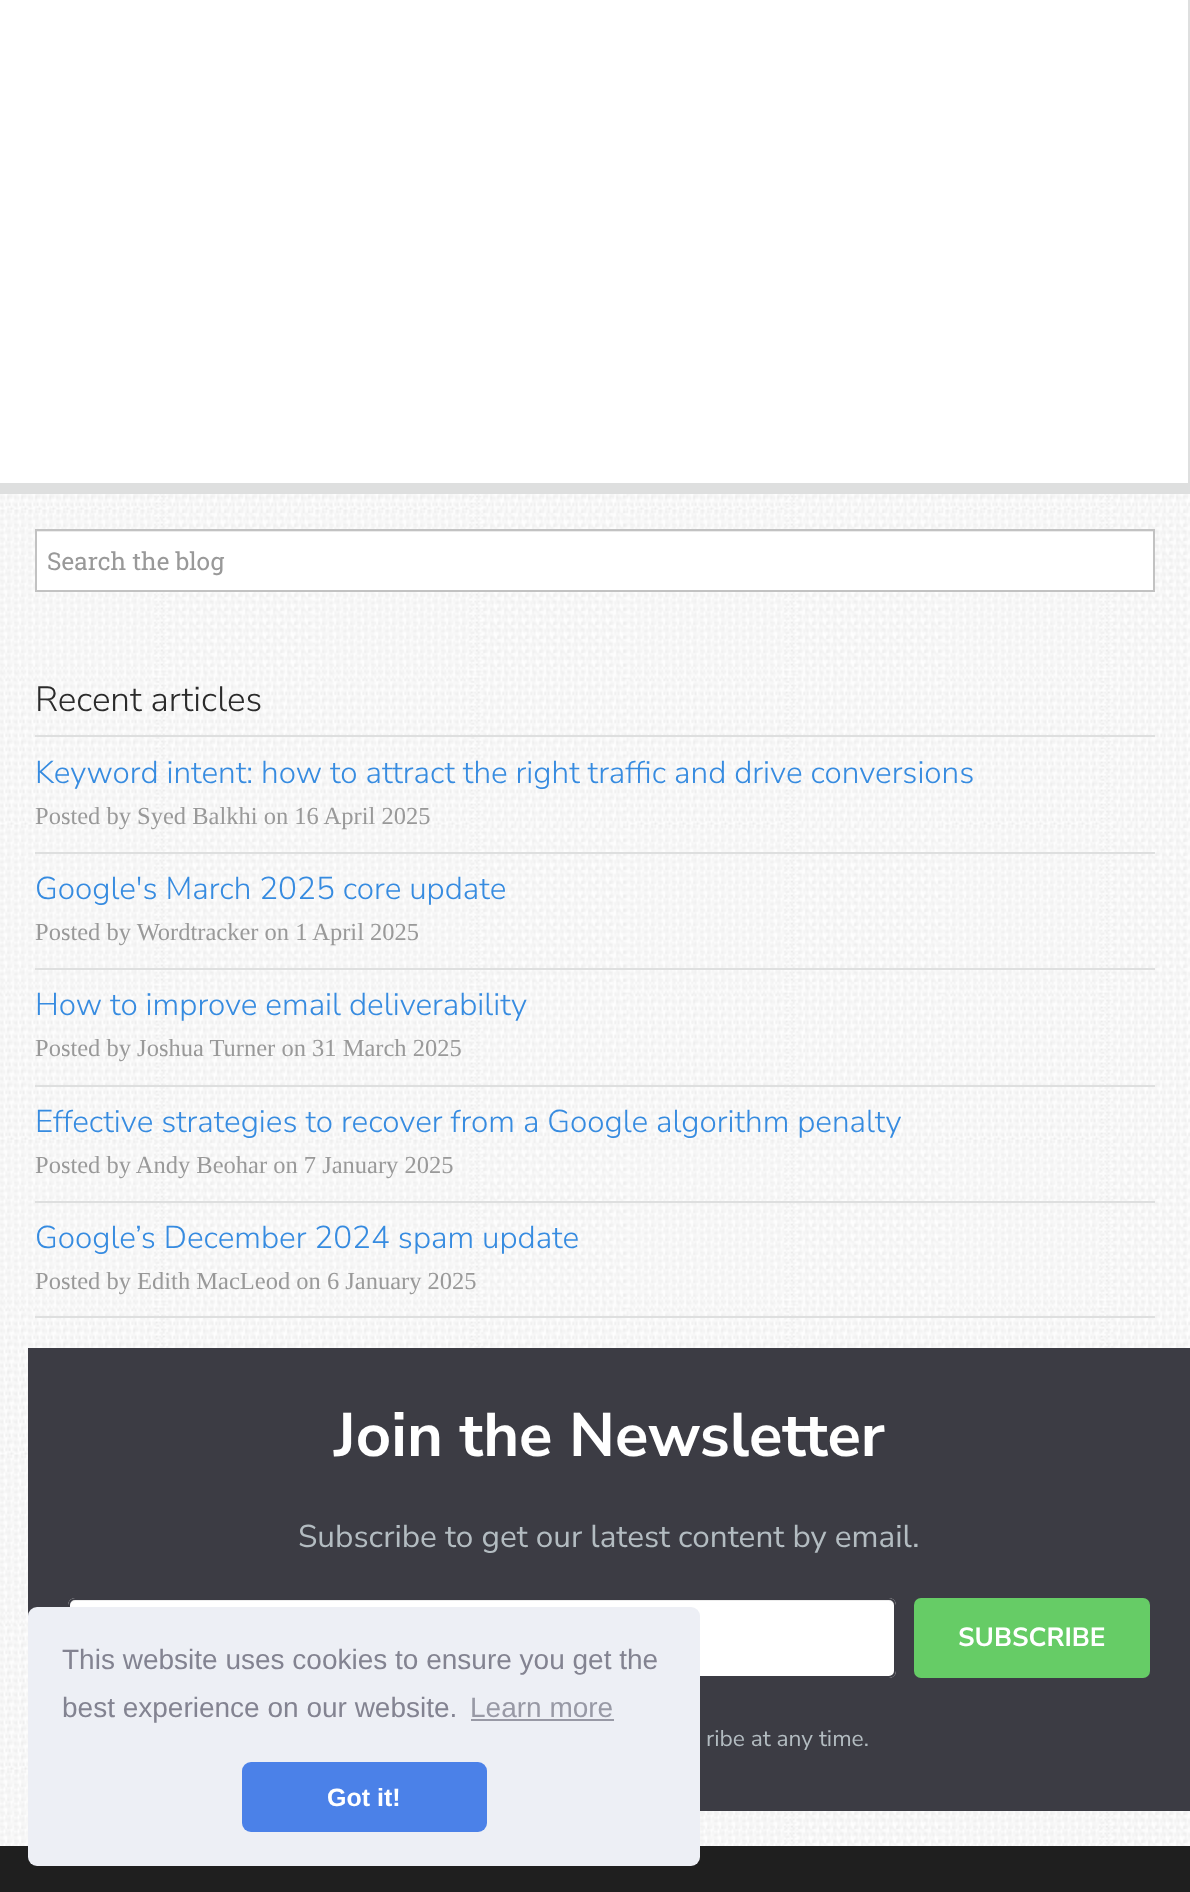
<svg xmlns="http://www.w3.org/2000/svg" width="1190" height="1892">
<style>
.a{font:24.5px Roboto Slab;fill:#999}
.b{font:300 35px Nunito Sans;fill:#2b2b2b}
.c{font:300 31.5px Nunito Sans;fill:#368be0}
.d{font:24.5px Liberation Serif;fill:#999}
.e{font:bold 61.5px Nunito Sans;fill:#fff}
.f{font:31.5px Nunito Sans;fill:#b3bcc1}
.g{font:bold 26.25px Nunito Sans;fill:#fff}
.h{font:22.75px Nunito Sans;fill:#b3bcc1}
.i{font:28px Liberation Sans;fill:#838391}
.j{font:28px Liberation Sans;fill:#9899a5}
.k{font:bold 25px Liberation Sans;fill:#fff}
</style>
<rect width="100%" height="100%" fill="#fff"/>
<image href="1.png" x="0" y="494" width="1190" height="1352"/>
<path fill="#dedfdf" d="M1188 0h2v483H1188z"/>
<path fill="#dedfdf" d="M0 483h1190v11H0z"/>
<path fill="#fff" d="M37 532h1116v58H37z"/>
<path fill="#ececec" d="M37 531h1116v1H37z"/>
<path fill="none" stroke="#c2c2c2" stroke-width="2" d="M36 530h1118v61H36z"/>
<path fill="#dedfdf" d="M35 735h1120v2H35z"/>
<path fill="#dedfdf" d="M35 852h1120v2H35z"/>
<path fill="#dedfdf" d="M35 968h1120v2H35z"/>
<path fill="#dedfdf" d="M35 1085h1120v2H35z"/>
<path fill="#dedfdf" d="M35 1201h1120v2H35z"/>
<path fill="#dedfdf" d="M35 1316h1120v2H35z"/>
<path fill="#3c3c44" d="M28 1348h1162v463H28z"/>
<rect fill="#fff" x="68" y="1598" width="828" height="80" rx="7"/>
<path fill="#ececec" d="M75 1601h814c3 0 5 3 5 5v-1c0-3-2-5-5-5h-814c-3 0-5 2-5 5v1c0-2 2-5 5-5z"/>
<rect fill="none" stroke="#3c3c44" stroke-width="2" x="69" y="1599" width="826" height="78" rx="6"/>
<rect fill="#6c6" x="914" y="1598" width="236" height="80" rx="7"/>
<path fill="#1f1f1f" d="M0 1846h1190v46H0z"/>
<rect fill="#edeff5" x="28" y="1607" width="672" height="259" rx="9"/>
<path fill="#9899a5" d="M471 1719h143v2H471z"/>
<rect fill="#4b81e8" x="242" y="1762" width="245" height="70" rx="9"/>
<text class="a" x="47" y="570">Search the blog</text>
<text class="b" x="35" y="711">Recent articles</text>
<text class="c" x="35" y="783">Keyword intent: how to attract the right traffic and drive conversions</text>
<text class="d" x="35" y="824">Posted by Syed Balkhi on 16 April 2025</text>
<text class="c" x="35" y="899">Google's March 2025 core update</text>
<text class="d" x="35" y="940">Posted by Wordtracker on 1 April 2025</text>
<text class="c" x="35" y="1015">How to improve email deliverability</text>
<text class="d" x="35" y="1056">Posted by Joshua Turner on 31 March 2025</text>
<text class="c" x="35" y="1132">Effective strategies to recover from a Google algorithm penalty</text>
<text class="d" x="35" y="1173">Posted by Andy Beohar on 7 January 2025</text>
<text class="c" x="35" y="1248">Google’s December 2024 spam update</text>
<text class="d" x="35" y="1289">Posted by Edith MacLeod on 6 January 2025</text>
<text class="e" x="334" y="1456">Join the Newsletter</text>
<text class="f" x="298" y="1547">Subscribe to get our latest content by email.</text>
<text class="g" x="958" y="1646">SUBSCRIBE</text>
<text class="h" x="706" y="1746">ribe at any time.</text>
<text class="i" x="62" y="1669">This website uses cookies to ensure you get the</text>
<text class="i" x="62" y="1717">best experience on our website.</text>
<text class="j" x="470" y="1717">Learn more</text>
<text class="k" x="327" y="1806">Got it!</text>
</svg>
